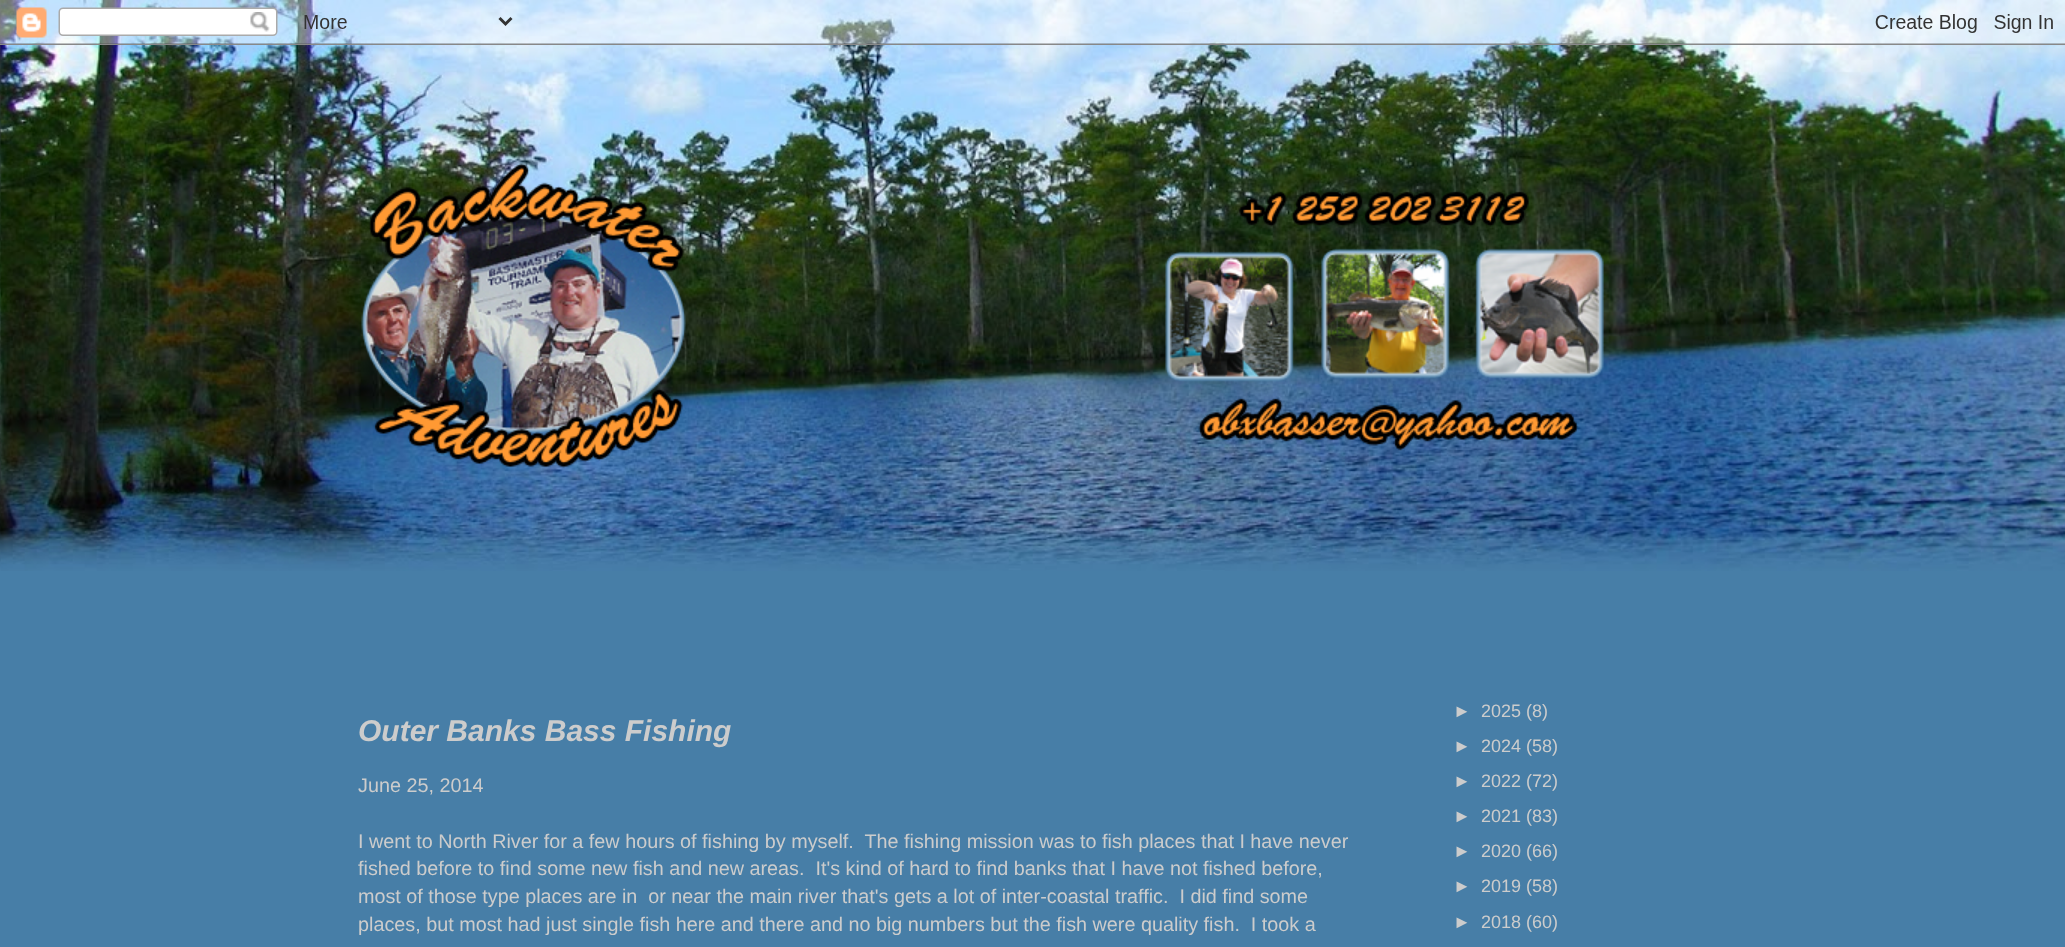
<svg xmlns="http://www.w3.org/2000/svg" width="2065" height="947">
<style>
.a{font:italic bold 30px Liberation Sans;fill:#ccc}
.b{font:19.8px Liberation Sans;fill:#ccc}
.c{font:18px Liberation Sans;fill:#ccc}
</style>
<rect width="100%" height="100%" fill="#477ea7"/>
<image href="1.png" x="0" y="0" width="2065" height="571"/>
<image href="2.png" x="0" y="0" width="2065" height="45"/>
<image href="3.png" x="361" y="163" width="1243" height="305"/>
<text class="a" x="358" y="741">Outer Banks Bass Fishing</text>
<text class="b" x="358" y="792">June 25, 2014</text>
<text class="b" xml:space="preserve" x="358" y="848">I went to North River for a few hours of fishing by myself.  The fishing mission was to fish places that I have never</text>
<text class="b" xml:space="preserve" x="358" y="875">fished before to find some new fish and new areas.  It's kind of hard to find banks that I have not fished before,</text>
<text class="b" xml:space="preserve" x="358" y="903">most of those type places are in  or near the main river that's gets a lot of inter-coastal traffic.  I did find some</text>
<text class="b" xml:space="preserve" x="358" y="931">places, but most had just single fish here and there and no big numbers but the fish were quality fish.  I took a</text>
<text class="c" x="1453" y="717">►</text>
<text class="c" x="1481" y="717">2025 (8)</text>
<text class="c" x="1453" y="752">►</text>
<text class="c" x="1481" y="752">2024 (58)</text>
<text class="c" x="1453" y="787">►</text>
<text class="c" x="1481" y="787">2022 (72)</text>
<text class="c" x="1453" y="822">►</text>
<text class="c" x="1481" y="822">2021 (83)</text>
<text class="c" x="1453" y="857">►</text>
<text class="c" x="1481" y="857">2020 (66)</text>
<text class="c" x="1453" y="892">►</text>
<text class="c" x="1481" y="892">2019 (58)</text>
<text class="c" x="1453" y="928">►</text>
<text class="c" x="1481" y="928">2018 (60)</text>
</svg>
